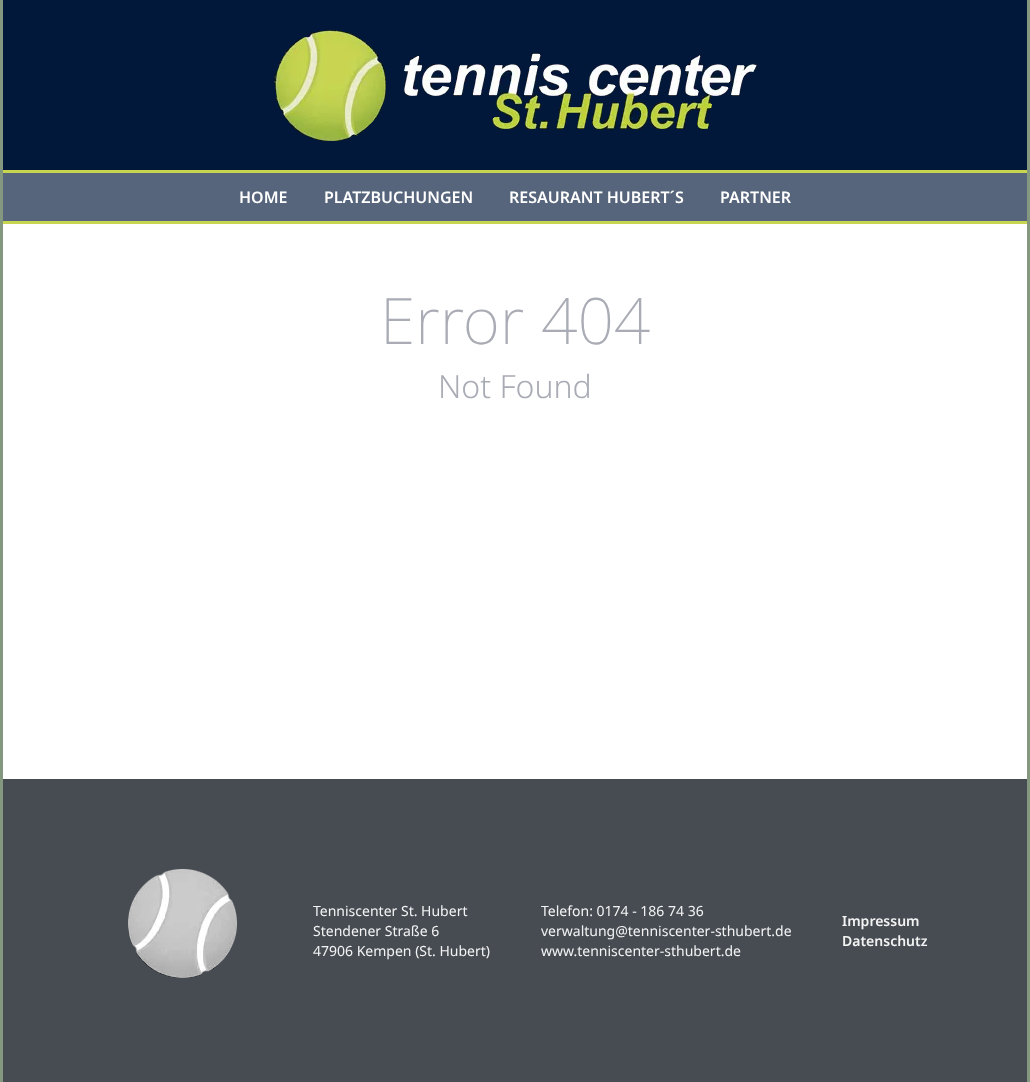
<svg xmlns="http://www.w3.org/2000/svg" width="1030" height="1082">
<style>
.a{font:600 16px Noto Sans;fill:#fff}
.b{font:200 64px Noto Sans;fill:#aaacb5}
.c{font:300 32px Noto Sans;fill:#aaacb5}
.d{font:14px Noto Sans;fill:#f3f3f4}
.e{font:600 14px Noto Sans;fill:#f3f3f4}
</style>
<rect width="100%" height="100%" fill="#84987f"/>
<path fill="#01183a" d="M3 0h1024v170H3z"/>
<image href="1.png" x="274" y="30" width="483" height="111"/>
<path fill="#56657b" d="M3 173h1024v48H3z"/>
<path fill="#c8d551" d="M3 170h1024v3H3z"/>
<path fill="#c8d551" d="M3 221h1024v3H3z"/>
<path fill="#fff" d="M3 224h1024v555H3z"/>
<path fill="#474c52" d="M3 779h1024v303H3z"/>
<image href="2.png" x="128" y="869" width="109" height="109"/>
<text class="a" x="239" y="203">HOME</text>
<text class="a" x="324" y="203">PLATZBUCHUNGEN</text>
<text class="a" x="509" y="203">RESAURANT HUBERT´S</text>
<text class="a" x="720" y="203">PARTNER</text>
<text class="b" x="380" y="344">Error 404</text>
<text class="c" x="438" y="398">Not Found</text>
<text class="d" x="313" y="916">Tenniscenter St. Hubert</text>
<text class="d" x="313" y="936">Stendener Straße 6</text>
<text class="d" x="313" y="956">47906 Kempen (St. Hubert)</text>
<text class="d" x="541" y="916">Telefon: 0174 - 186 74 36</text>
<text class="d" x="541" y="936">verwaltung@tenniscenter-sthubert.de</text>
<text class="d" x="541" y="956">www.tenniscenter-sthubert.de</text>
<text class="e" x="842" y="926">Impressum</text>
<text class="e" x="842" y="946">Datenschutz</text>
</svg>
